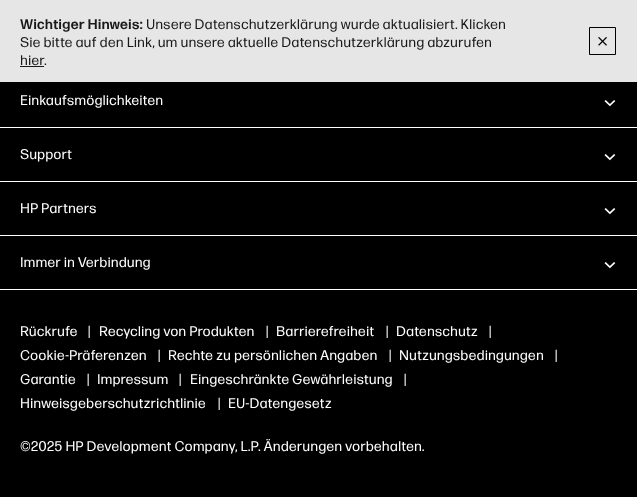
<svg xmlns="http://www.w3.org/2000/svg" width="637" height="497">
<style>
.a{font:bold 14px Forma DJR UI;fill:#191919}
.b{font:14px Forma DJR UI;fill:#191919}
.c{font:14px Forma DJR UI;fill:#fff}
</style>
<rect width="100%" height="100%" fill="#000"/>
<path fill="#e6e6e6" d="M0 0h637v82H0z"/>
<path fill="#191919" d="M20 66h24v1H20z"/>
<path fill="none" stroke="#000" d="M589.5 27.5h26v27H589.5z"/>
<image href="1.png" x="598" y="37" width="9" height="9"/>
<image href="2.png" x="604" y="100" width="12" height="7"/>
<path fill="#fff" d="M0 127h637v1H0z"/>
<image href="2.png" x="604" y="154" width="12" height="7"/>
<path fill="#fff" d="M0 181h637v1H0z"/>
<image href="2.png" x="604" y="208" width="12" height="7"/>
<path fill="#fff" d="M0 235h637v1H0z"/>
<image href="2.png" x="604" y="262" width="12" height="7"/>
<path fill="#fff" d="M0 289h637v1H0z"/>
<text class="a" x="20" y="29">Wichtiger Hinweis:</text>
<text class="b" x="146" y="29">Unsere Datenschutzerklärung wurde aktualisiert. Klicken</text>
<text class="b" x="20" y="47">Sie bitte auf den Link, um unsere aktuelle Datenschutzerklärung abzurufen</text>
<text class="b" x="20" y="65">hier</text>
<text class="b" x="44" y="65">.</text>
<text class="c" x="20" y="105">Einkaufsmöglichkeiten</text>
<text class="c" x="20" y="159">Support</text>
<text class="c" x="20" y="213">HP Partners</text>
<text class="c" x="20" y="267">Immer in Verbindung</text>
<text class="c" x="20" y="336">Rückrufe</text>
<text class="c" x="88" y="336">|</text>
<text class="c" x="99" y="336">Recycling von Produkten</text>
<text class="c" x="266" y="336">|</text>
<text class="c" x="276" y="336">Barrierefreiheit</text>
<text class="c" x="386" y="336">|</text>
<text class="c" x="396" y="336">Datenschutz</text>
<text class="c" x="489" y="336">|</text>
<text class="c" x="20" y="360">Cookie-Präferenzen</text>
<text class="c" x="158" y="360">|</text>
<text class="c" x="168" y="360">Rechte zu persönlichen Angaben</text>
<text class="c" x="389" y="360">|</text>
<text class="c" x="399" y="360">Nutzungsbedingungen</text>
<text class="c" x="555" y="360">|</text>
<text class="c" x="20" y="384">Garantie</text>
<text class="c" x="87" y="384">|</text>
<text class="c" x="97" y="384">Impressum</text>
<text class="c" x="179" y="384">|</text>
<text class="c" x="190" y="384">Eingeschränkte Gewährleistung</text>
<text class="c" x="404" y="384">|</text>
<text class="c" x="20" y="408">Hinweisgeberschutzrichtlinie</text>
<text class="c" x="218" y="408">|</text>
<text class="c" x="228" y="408">EU-Datengesetz</text>
<text class="c" x="20" y="451">©2025 HP Development Company, L.P. Änderungen vorbehalten.</text>
</svg>
